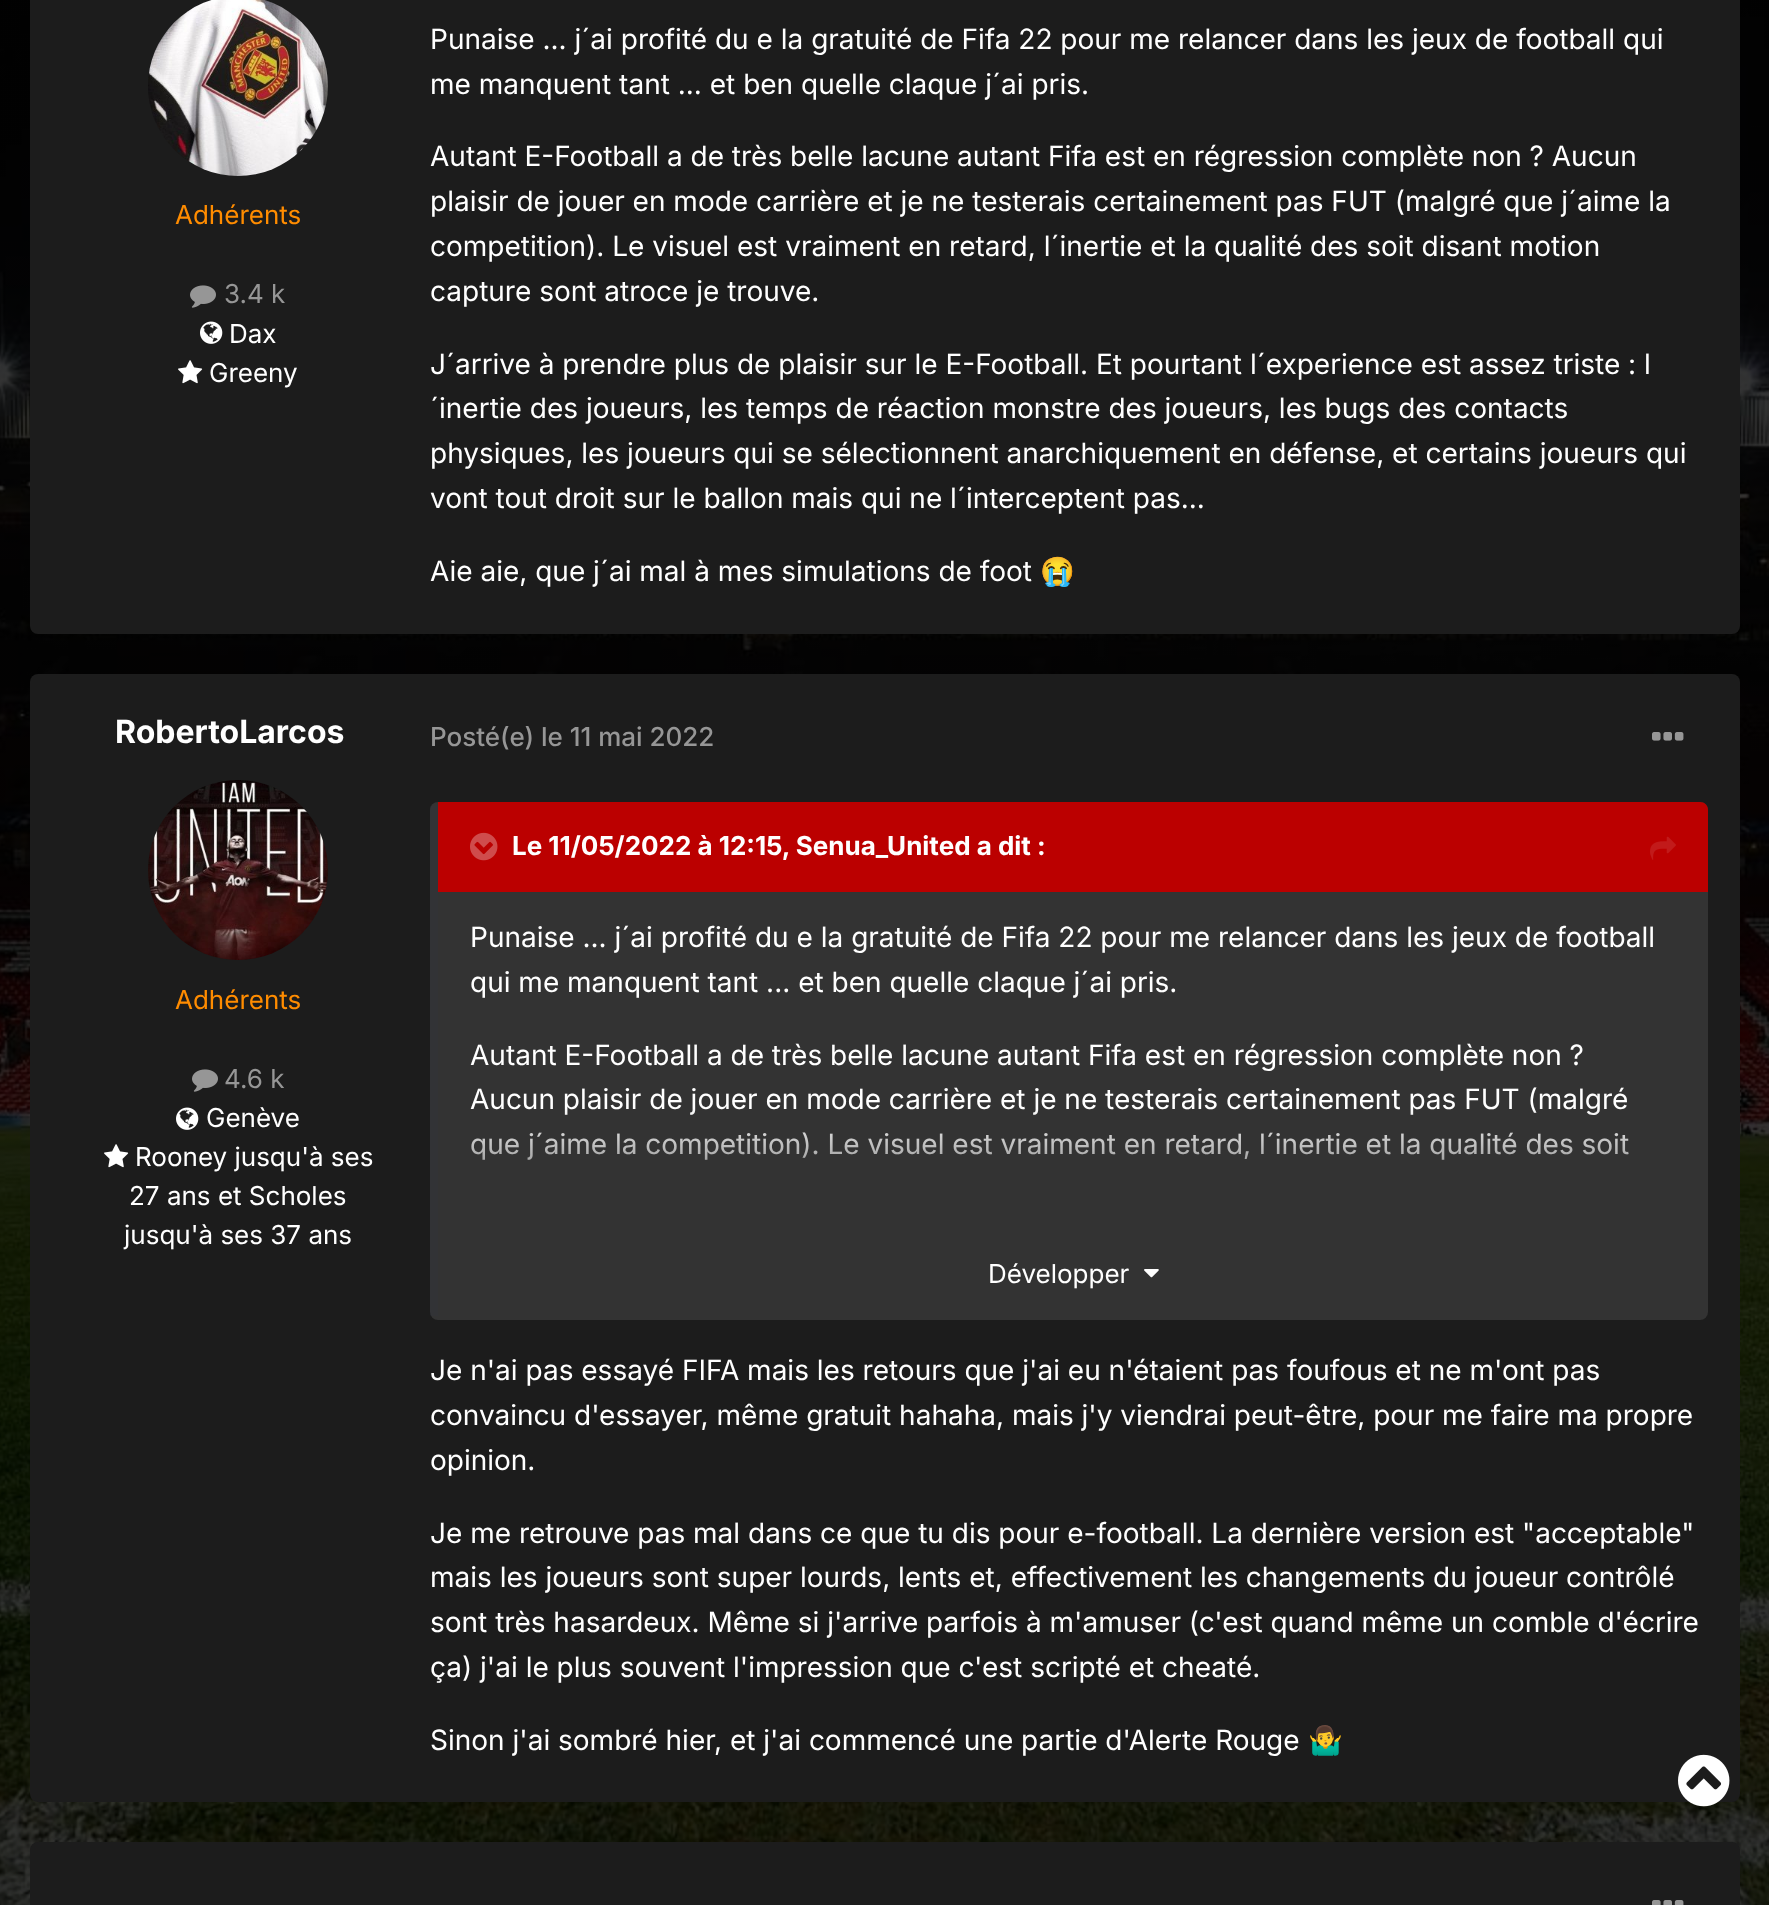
<svg xmlns="http://www.w3.org/2000/svg" width="1769" height="1905">
<style>
.a{font:26px Inter;fill:#ff8c00}
.b{font:26px Inter;fill:#969696}
.c{font:26px Inter;fill:#fff}
.d{font:28px Inter;fill:#fff}
.e{font:28px Noto Color Emoji;fill:#fff}
.f{font:bold 32px Inter;fill:#fff}
.g{font:500 26px Inter;fill:#969696}
.h{font:bold 26px Inter;fill:#fff}
</style>
<defs>
<linearGradient id="g1" gradientUnits="userSpaceOnUse" x1="1073" y1="1108" x2="1073" y2="1228"><stop offset="0" stop-color="#333" stop-opacity="0.01"/><stop offset="1" stop-color="#333" stop-opacity="0.99"/></linearGradient>
</defs>
<rect width="100%" height="100%" fill="#fff"/>
<image href="1.png" x="0" y="0" width="1769" height="1905"/>
<rect fill="#1c1c1c" x="30" y="-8" width="1710" height="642" rx="8"/>
<image href="2.png" x="148" y="0" width="180" height="176"/>
<image href="3.png" x="190" y="285" width="26" height="23"/>
<image href="4.png" x="200" y="321" width="23" height="23"/>
<image href="5.png" x="178" y="360" width="25" height="24"/>
<rect fill="#1c1c1c" x="30" y="674" width="1710" height="1128" rx="8"/>
<image href="6.png" x="148" y="780" width="180" height="180"/>
<image href="3.png" x="192" y="1069" width="26" height="23"/>
<image href="4.png" x="176" y="1107" width="23" height="23"/>
<image href="5.png" x="104" y="1144" width="25" height="24"/>
<image href="7.png" x="1652" y="732" width="32" height="9"/>
<rect fill="#333" x="430" y="802" width="1278" height="518" rx="8"/>
<path fill="#2d374826" d="M430 806h8v510H430z"/>
<path fill="#b00" d="M438 802h1262c4.5 0 8 3.5 8 8v82h-1270z"/>
<image href="8.png" x="470" y="832" width="28" height="29"/>
<image href="9.png" x="1650" y="836" width="26" height="24"/>
<image href="10.png" x="1144" y="1269" width="15" height="9"/>
<rect fill="#1c1c1c" x="30" y="1842" width="1710" height="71" rx="8"/>
<image href="11.png" x="1652" y="1900" width="32" height="5"/>
<image href="12.png" x="1678" y="1754" width="52" height="53"/>
<text class="a" x="175" y="224">Adhérents</text>
<text class="b" x="224" y="303">3.4 k</text>
<text class="c" x="229" y="343">Dax</text>
<text class="c" x="209" y="382">Greeny</text>
<text class="d" x="430" y="49">Punaise ... j´ai profité du e la gratuité de Fifa 22 pour me relancer dans les jeux de football qui</text>
<text class="d" x="430" y="94">me manquent tant ... et ben quelle claque j´ai pris.</text>
<text class="d" x="430" y="166">Autant E-Football a de très belle lacune autant Fifa est en régression complète non ? Aucun</text>
<text class="d" x="430" y="211">plaisir de jouer en mode carrière et je ne testerais certainement pas FUT (malgré que j´aime la</text>
<text class="d" x="430" y="256">competition). Le visuel est vraiment en retard, l´inertie et la qualité des soit disant motion</text>
<text class="d" x="430" y="301">capture sont atroce je trouve.</text>
<text class="d" x="430" y="374">J´arrive à prendre plus de plaisir sur le E-Football. Et pourtant l´experience est assez triste : l</text>
<text class="d" x="430" y="418">´inertie des joueurs, les temps de réaction monstre des joueurs, les bugs des contacts</text>
<text class="d" x="430" y="463">physiques, les joueurs qui se sélectionnent anarchiquement en défense, et certains joueurs qui</text>
<text class="d" x="430" y="508">vont tout droit sur le ballon mais qui ne l´interceptent pas...</text>
<text class="d" x="430" y="581">Aie aie, que j´ai mal à mes simulations de foot</text>
<text class="e" x="1040" y="581">😭</text>
<text class="f" x="115" y="743">RobertoLarcos</text>
<text class="a" x="175" y="1009">Adhérents</text>
<text class="b" x="224" y="1088">4.6 k</text>
<text class="c" x="206" y="1127">Genève</text>
<text class="c" x="135" y="1166">Rooney jusqu'à ses</text>
<text class="c" x="129" y="1205">27 ans et Scholes</text>
<text class="c" x="124" y="1244">jusqu'à ses 37 ans</text>
<text class="g" x="430" y="746">Posté(e) le 11 mai 2022</text>
<text class="h" x="512" y="855">Le 11/05/2022 à 12:15, Senua_United a dit :</text>
<text class="d" x="470" y="947">Punaise ... j´ai profité du e la gratuité de Fifa 22 pour me relancer dans les jeux de football</text>
<text class="d" x="470" y="992">qui me manquent tant ... et ben quelle claque j´ai pris.</text>
<text class="d" x="470" y="1065">Autant E-Football a de très belle lacune autant Fifa est en régression complète non ?</text>
<text class="d" x="470" y="1109">Aucun plaisir de jouer en mode carrière et je ne testerais certainement pas FUT (malgré</text>
<text class="d" x="470" y="1154">que j´aime la competition). Le visuel est vraiment en retard, l´inertie et la qualité des soit</text>
<path fill="url(#g1)" d="M471 1109h1158v51H471z"/>
<text class="c" x="988" y="1283">Développer</text>
<text class="d" x="430" y="1380">Je n'ai pas essayé FIFA mais les retours que j'ai eu n'étaient pas foufous et ne m'ont pas</text>
<text class="d" x="430" y="1425">convaincu d'essayer, même gratuit hahaha, mais j'y viendrai peut-être, pour me faire ma propre</text>
<text class="d" x="430" y="1470">opinion.</text>
<text class="d" x="430" y="1543">Je me retrouve pas mal dans ce que tu dis pour e-football. La dernière version est "acceptable"</text>
<text class="d" x="430" y="1587">mais les joueurs sont super lourds, lents et, effectivement les changements du joueur contrôlé</text>
<text class="d" x="430" y="1632">sont très hasardeux. Même si j'arrive parfois à m'amuser (c'est quand même un comble d'écrire</text>
<text class="d" x="430" y="1677">ça) j'ai le plus souvent l'impression que c'est scripté et cheaté.</text>
<text class="d" x="430" y="1750">Sinon j'ai sombré hier, et j'ai commencé une partie d'Alerte Rouge</text>
<text class="e" x="1308" y="1750">🤷‍♂️</text>
</svg>
